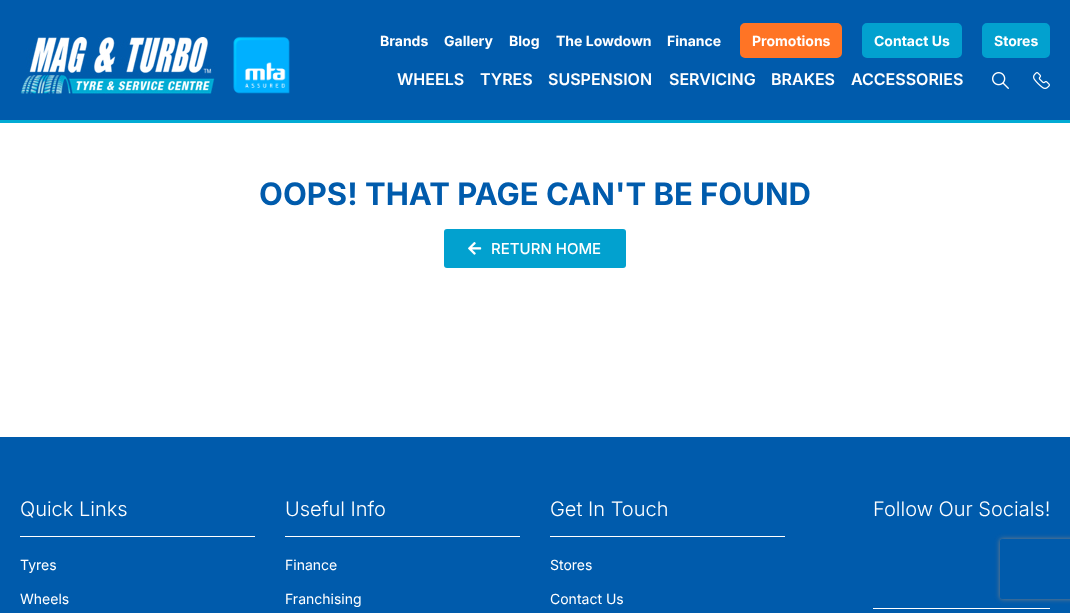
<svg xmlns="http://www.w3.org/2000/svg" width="1070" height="613">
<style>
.a{font:bold 14px Inter;fill:#fff}
.b{font:600 16px Inter;fill:#fff}
.c{font:bold 31px Inter;fill:#005bac}
.d{font:500 15px Inter;fill:#fff}
.e{font:300 20px Inter;fill:#fff}
.f{font:14px Inter;fill:#fff}
</style>
<defs>
<clipPath id="clip1"><path d="M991 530h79v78h-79zm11 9h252c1 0 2 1 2 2v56c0 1-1 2-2 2h-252c-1 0-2-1-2-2v-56c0-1 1-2 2-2z" clip-rule="evenodd"/></clipPath>
</defs>
<rect width="100%" height="100%" fill="#fff"/>
<path fill="#02abd4" d="M0 120h1070v3H0z"/>
<path fill="#005bac" d="M0 0h1070v120H0z"/>
<image href="1.png" x="21" y="35" width="194" height="59"/>
<image href="2.png" x="233" y="36" width="57" height="58"/>
<rect fill="#ff7425" stroke="#ff7425" stroke-width="2" x="741" y="24" width="100" height="33" rx="4"/>
<rect fill="#02a1cf" stroke="#02a1cf" stroke-width="2" x="863" y="24" width="98" height="33" rx="4"/>
<rect fill="#02a1cf" stroke="#02a1cf" stroke-width="2" x="983" y="24" width="66" height="33" rx="4"/>
<image href="3.png" x="992" y="72" width="17" height="17"/>
<image href="4.png" x="1033" y="72" width="17" height="17"/>
<rect fill="#02a1cf" x="444" y="229" width="182" height="39" rx="3"/>
<image href="5.png" x="468" y="242" width="14" height="13"/>
<path fill="#005bac" d="M0 437h1070v176H0z"/>
<path fill="#fff" d="M20 536h235v1H20z"/>
<path fill="#fff" d="M285 536h235v1H285z"/>
<path fill="#fff" d="M550 536h235v1H550z"/>
<path fill="#fff" d="M873 608h177v1H873z"/>
<g clip-path="url(#clip1)">
<rect fill="#808080" filter="blur(2.5px)" x="1000" y="539" width="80" height="60" rx="2"/>
</g>
<text class="a" x="380" y="46">Brands</text>
<text class="a" x="444" y="46">Gallery</text>
<text class="a" x="509" y="46">Blog</text>
<text class="a" x="556" y="46">The Lowdown</text>
<text class="a" x="667" y="46">Finance</text>
<text class="a" x="752" y="46">Promotions</text>
<text class="a" x="874" y="46">Contact Us</text>
<text class="a" x="994" y="46">Stores</text>
<text class="b" x="397" y="85">WHEELS</text>
<text class="b" x="480" y="85">TYRES</text>
<text class="b" x="548" y="85">SUSPENSION</text>
<text class="b" x="669" y="85">SERVICING</text>
<text class="b" x="771" y="85">BRAKES</text>
<text class="b" x="851" y="85">ACCESSORIES</text>
<text class="c" x="259" y="205">OOPS! THAT PAGE CAN'T BE FOUND</text>
<text class="d" x="491" y="254">RETURN HOME</text>
<text class="e" x="20" y="516">Quick Links</text>
<text class="f" x="20" y="570">Tyres</text>
<text class="f" x="20" y="604">Wheels</text>
<text class="e" x="285" y="516">Useful Info</text>
<text class="f" x="285" y="570">Finance</text>
<text class="f" x="285" y="604">Franchising</text>
<text class="e" x="550" y="516">Get In Touch</text>
<text class="f" x="550" y="570">Stores</text>
<text class="f" x="550" y="604">Contact Us</text>
<text class="e" x="873" y="516">Follow Our Socials!</text>
</svg>
